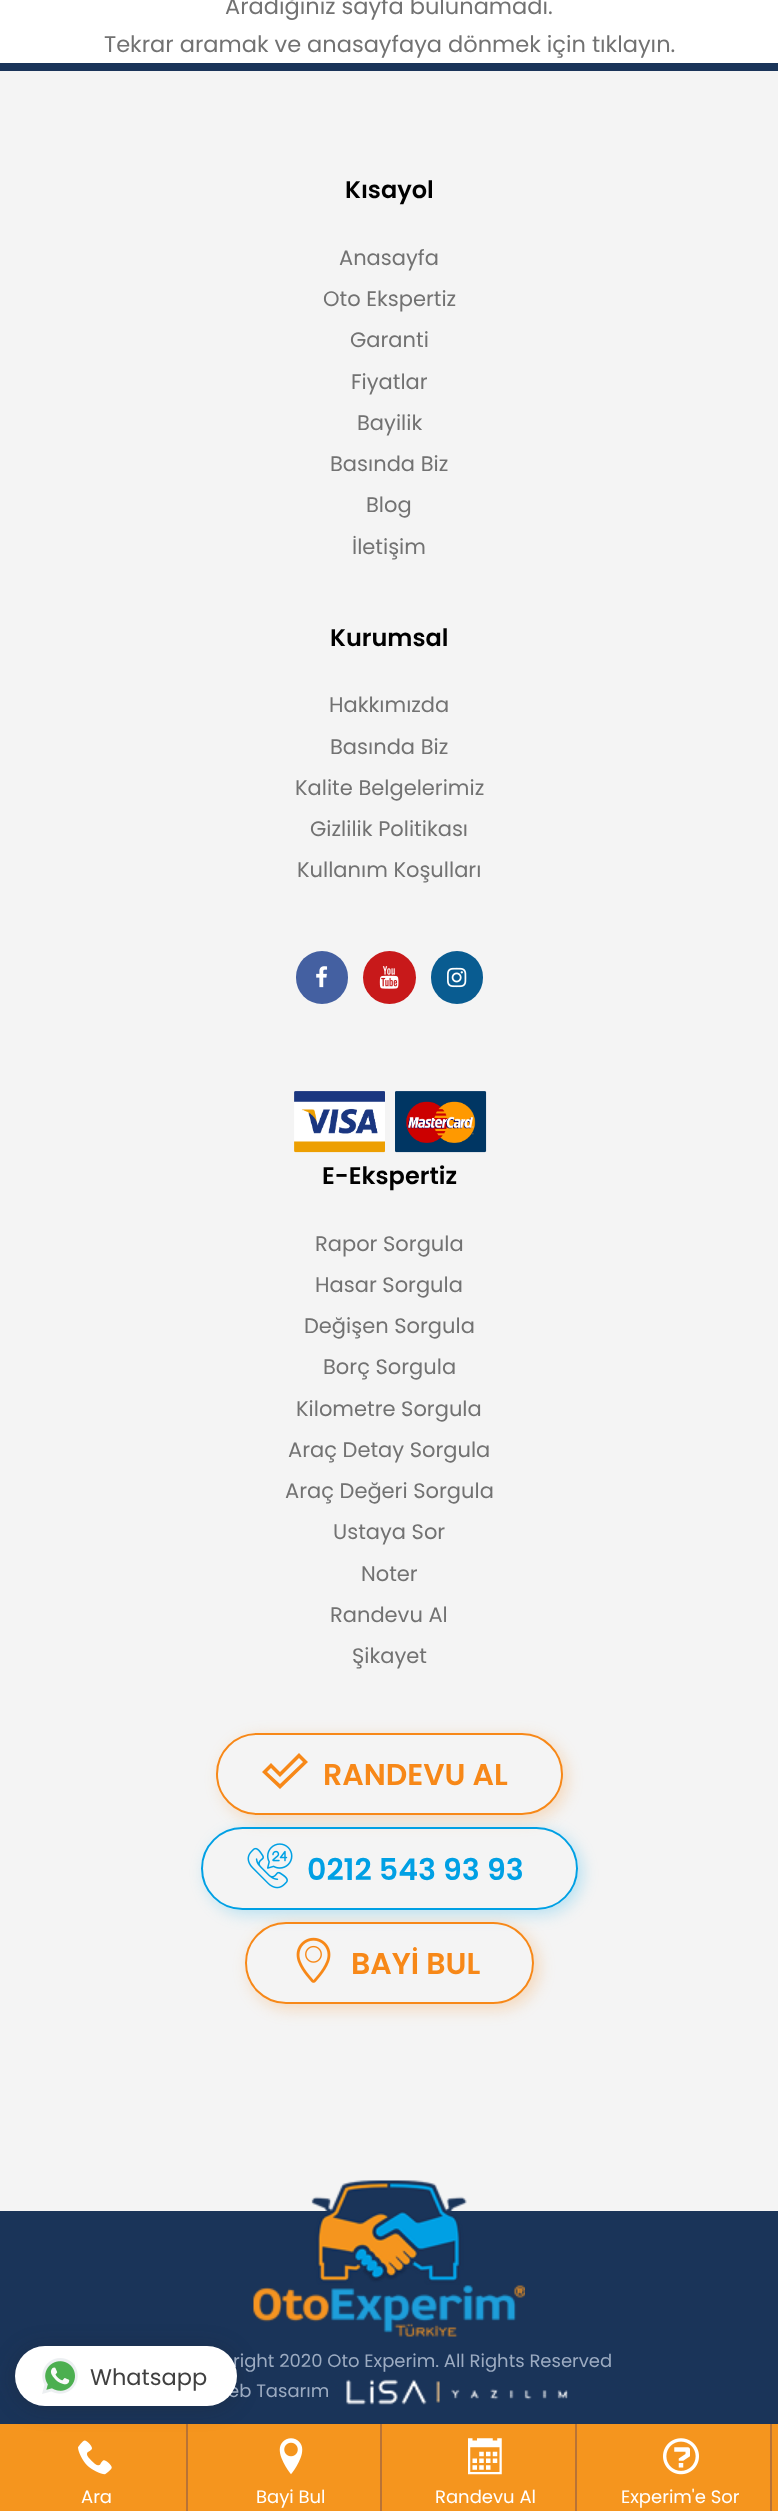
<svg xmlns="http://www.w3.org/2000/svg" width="778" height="2511">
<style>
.a{font:22.5px Poppins;fill:#727272}
.b{font:600 24px Poppins;fill:#000}
.c{font:21px Poppins;fill:#727272}
.d{font:600 30px Poppins;fill:#f78818}
.e{font:600 30px Poppins;fill:#00a0e4}
.f{font:18px Poppins;fill:#9cabc1}
.g{font:22.5px Poppins;fill:#404040}
.h{font:18px Poppins;fill:#fff}
</style>
<defs>
<clipPath id="clip1"><path d="M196 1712h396v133h-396zm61 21h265c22.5 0 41 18.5 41 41c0 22.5-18.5 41-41 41h-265c-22.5 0-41-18.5-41-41c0-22.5 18.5-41 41-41z" clip-rule="evenodd"/></clipPath>
<clipPath id="clip2"><path d="M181 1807h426v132h-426zm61.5 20h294c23 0 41.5 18.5 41.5 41.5c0 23-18.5 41.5-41.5 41.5h-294c-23 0-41.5-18.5-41.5-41.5c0-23 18.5-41.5 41.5-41.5z" clip-rule="evenodd"/></clipPath>
<clipPath id="clip3"><path d="M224 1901h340v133h-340zm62 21h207c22.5 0 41 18.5 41 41c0 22.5-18.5 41-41 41h-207c-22.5 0-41-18.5-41-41c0-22.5 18.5-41 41-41z" clip-rule="evenodd"/></clipPath>
</defs>
<rect width="100%" height="100%" fill="#fff"/>
<path fill="#1a3459" d="M0 2211h778v213H0z"/>
<path fill="#f4f4f4" d="M0 71h778v2140H0z"/>
<image href="8.png" x="253" y="2180" width="272" height="157"/>
<path fill="#f5951e" d="M0 2424h778v87H0z"/>
<path fill="#b97335" d="M186 2424h2v87H186z"/>
<image href="10.png" x="78" y="2440" width="34" height="35"/>
<rect fill="#20212447" filter="blur(11px)" x="15" y="2348" width="222" height="60" rx="30"/>
<path fill="#1a3459" d="M0 63h778v8H0z"/>
<rect fill="#4460a1" x="296" y="951" width="52" height="53" rx="26"/>
<image href="2.png" x="316" y="966" width="12" height="22"/>
<circle fill="#c8191a" cx="389.5" cy="977.5" r="26.5"/>
<image href="3.png" x="379" y="966" width="20" height="23"/>
<rect fill="#095c91" x="431" y="951" width="52" height="53" rx="26"/>
<image href="4.png" x="447" y="967" width="20" height="21"/>
<image href="5.png" x="294" y="1091" width="193" height="62"/>
<g clip-path="url(#clip1)">
<rect fill="#f7881840" filter="blur(8px)" x="221" y="1737" width="346" height="83" rx="41.5"/>
</g>
<rect fill="none" stroke="#f78818" stroke-width="2" x="217" y="1734" width="345" height="80" rx="40"/>
<path fill="#f78818" d="M280 1789l-18-17l9-9l9 9l19-19l9 9zm-13-17l13 12l23-22l-4-4l-19 19l-9-9z"/>
<g clip-path="url(#clip2)">
<rect fill="#00a7ea40" filter="blur(8px)" x="206" y="1832" width="376" height="82" rx="41"/>
</g>
<rect fill="none" stroke="#00a0e4" stroke-width="2" x="202" y="1828" width="375" height="81" rx="40.5"/>
<image href="6.png" x="247" y="1843" width="46" height="46"/>
<g clip-path="url(#clip3)">
<rect fill="#f7881840" filter="blur(8px)" x="249" y="1926" width="290" height="83" rx="41.5"/>
</g>
<rect fill="none" stroke="#f78818" stroke-width="2" x="246" y="1923" width="287" height="80" rx="40"/>
<image href="7.png" x="296" y="1937" width="35" height="46"/>
<image href="9.png" x="346" y="2379" width="222" height="26"/>
<path fill="#b97335" d="M380 2424h2v87H380z"/>
<image href="11.png" x="279" y="2438" width="24" height="37"/>
<path fill="#b97335" d="M575 2424h2v87H575z"/>
<image href="12.png" x="468" y="2438" width="34" height="37"/>
<path fill="#b97335" d="M770 2424h2v87H770z"/>
<image href="13.png" x="663" y="2438" width="36" height="37"/>
<text class="a" x="225" y="14">Aradığınız sayfa bulunamadı.</text>
<text class="a" x="104" y="52">Tekrar aramak ve anasayfaya dönmek için tıklayın.</text>
<text class="b" x="345" y="198">Kısayol</text>
<text class="c" x="339" y="265">Anasayfa</text>
<text class="c" x="323" y="306">Oto Ekspertiz</text>
<text class="c" x="350" y="347">Garanti</text>
<text class="c" x="351" y="389">Fiyatlar</text>
<text class="c" x="357" y="430">Bayilik</text>
<text class="c" x="330" y="471">Basında Biz</text>
<text class="c" x="366" y="512">Blog</text>
<text class="c" x="352" y="554">İletişim</text>
<text class="b" x="330" y="646">Kurumsal</text>
<text class="c" x="329" y="712">Hakkımızda</text>
<text class="c" x="330" y="754">Basında Biz</text>
<text class="c" x="295" y="795">Kalite Belgelerimiz</text>
<text class="c" x="310" y="836">Gizlilik Politikası</text>
<text class="c" x="297" y="877">Kullanım Koşulları</text>
<text class="b" x="322" y="1184">E-Ekspertiz</text>
<text class="c" x="315" y="1251">Rapor Sorgula</text>
<text class="c" x="315" y="1292">Hasar Sorgula</text>
<text class="c" x="304" y="1333">Değişen Sorgula</text>
<text class="c" x="323" y="1374">Borç Sorgula</text>
<text class="c" x="296" y="1416">Kilometre Sorgula</text>
<text class="c" x="288" y="1457">Araç Detay Sorgula</text>
<text class="c" x="285" y="1498">Araç Değeri Sorgula</text>
<text class="c" x="333" y="1539">Ustaya Sor</text>
<text class="c" x="361" y="1581">Noter</text>
<text class="c" x="330" y="1622">Randevu Al</text>
<text class="c" x="352" y="1663">Şikayet</text>
<text class="d" x="323" y="1785">RANDEVU AL</text>
<text class="e" x="307" y="1880">0212 543 93 93</text>
<text class="d" x="351" y="1974">BAYİ BUL</text>
<text class="f" x="233" y="2367">right 2020 Oto Experim. All Rights Reserved</text>
<text class="f" x="228" y="2397">eb Tasarım</text>
<rect fill="#fff" x="15" y="2346" width="222" height="60" rx="30"/>
<image href="1.png" x="42" y="2358" width="36" height="36"/>
<text class="g" x="90" y="2385">Whatsapp</text>
<text class="h" x="81" y="2503">Ara</text>
<text class="h" x="256" y="2503">Bayi Bul</text>
<text class="h" x="435" y="2503">Randevu Al</text>
<text class="h" x="621" y="2503">Experim'e Sor</text>
</svg>
